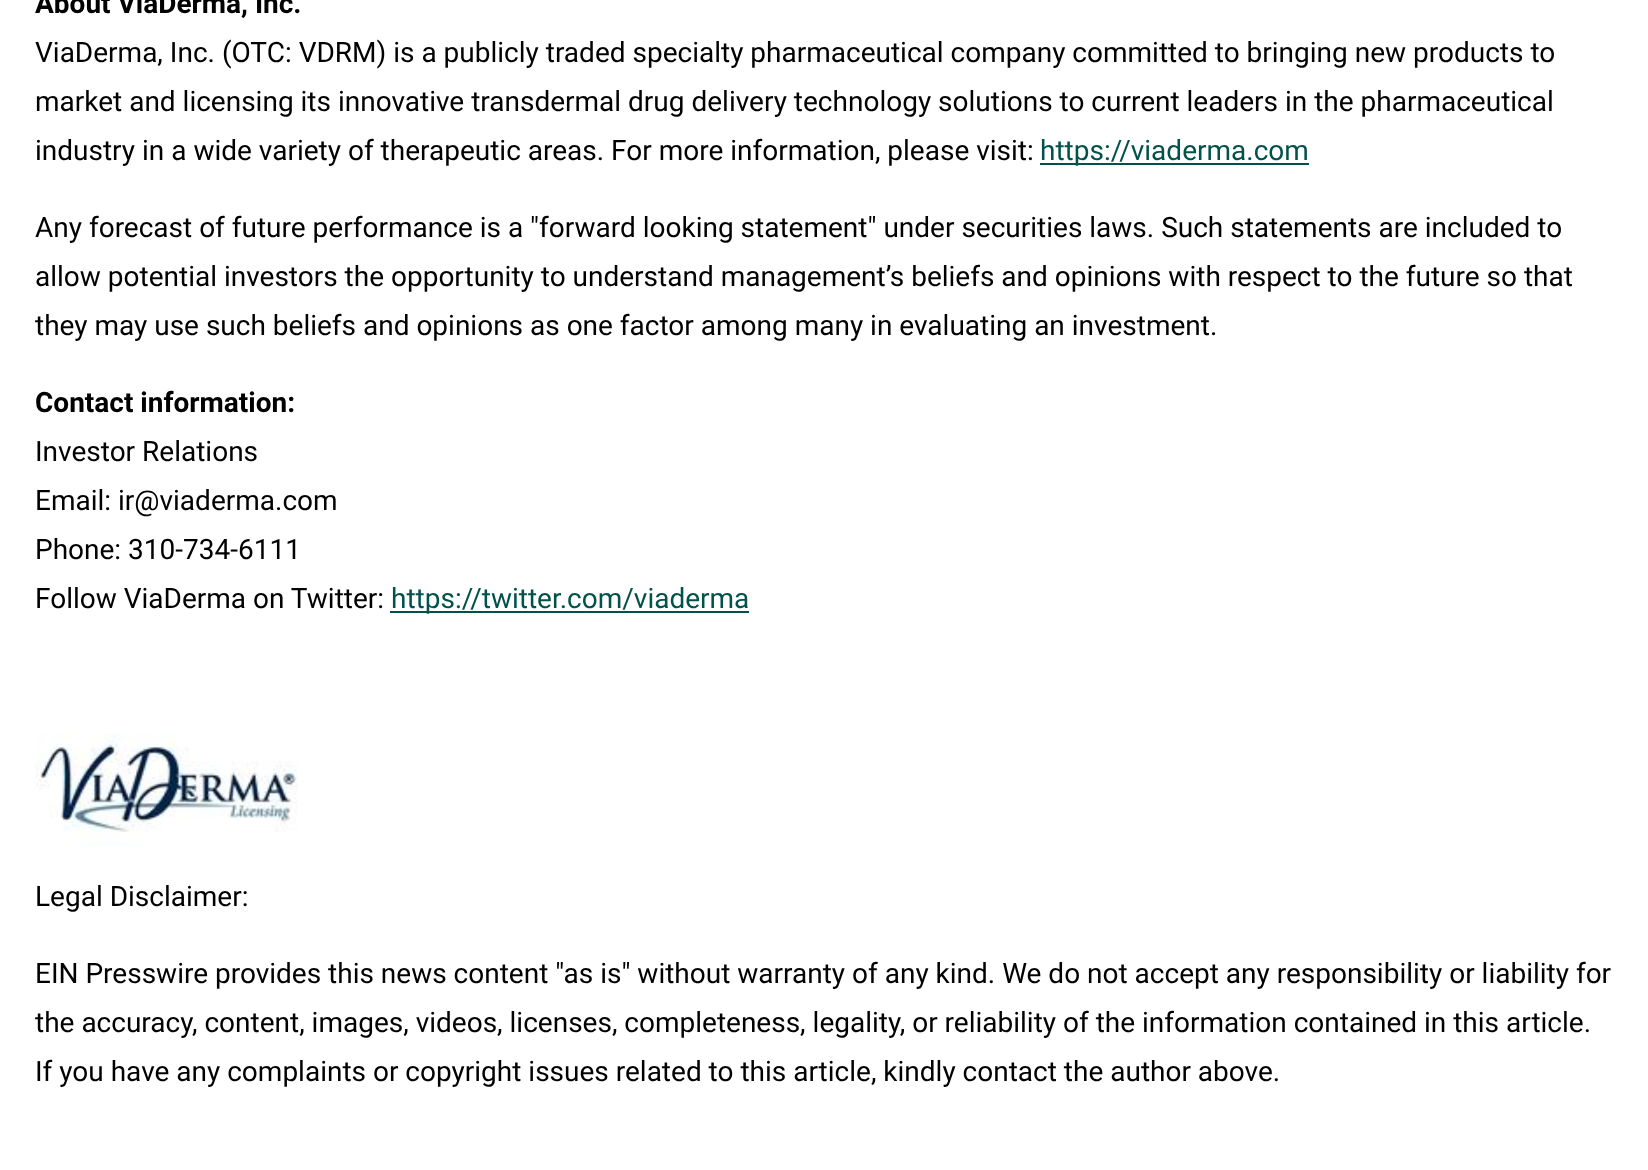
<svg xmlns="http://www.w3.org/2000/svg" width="1648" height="1170">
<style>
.a{font:bold 28px Roboto;fill:#000}
.b{font:28px Roboto;fill:#000}
.c{font:28px Roboto;fill:#00524b}
</style>
<rect width="100%" height="100%" fill="#fff"/>
<path fill="#00524b" d="M1040 163h269v2H1040z"/>
<path fill="#00524b" d="M390 611h359v2H390z"/>
<image href="1.png" x="35" y="733" width="263" height="113"/>
<text class="a" x="35" y="13">About ViaDerma, Inc.</text>
<text class="b" x="35" y="62">ViaDerma, Inc. (OTC: VDRM) is a publicly traded specialty pharmaceutical company committed to bringing new products to</text>
<text class="b" x="35" y="111">market and licensing its innovative transdermal drug delivery technology solutions to current leaders in the pharmaceutical</text>
<text class="b" x="35" y="160">industry in a wide variety of therapeutic areas. For more information, please visit:</text>
<text class="c" x="1040" y="160">https://viaderma.com</text>
<text class="b" x="35" y="237">Any forecast of future performance is a "forward looking statement" under securities laws. Such statements are included to</text>
<text class="b" x="35" y="286">allow potential investors the opportunity to understand management’s beliefs and opinions with respect to the future so that</text>
<text class="b" x="35" y="335">they may use such beliefs and opinions as one factor among many in evaluating an investment.</text>
<text class="a" x="35" y="412">Contact information:</text>
<text class="b" x="35" y="461">Investor Relations</text>
<text class="b" x="35" y="510">Email: ir@viaderma.com</text>
<text class="b" x="35" y="559">Phone: 310-734-6111</text>
<text class="b" x="35" y="608">Follow ViaDerma on Twitter:</text>
<text class="c" x="391" y="608">https://twitter.com/viaderma</text>
<text class="b" x="35" y="906">Legal Disclaimer:</text>
<text class="b" x="35" y="983">EIN Presswire provides this news content "as is" without warranty of any kind. We do not accept any responsibility or liability for</text>
<text class="b" x="35" y="1032">the accuracy, content, images, videos, licenses, completeness, legality, or reliability of the information contained in this article.</text>
<text class="b" x="35" y="1081">If you have any complaints or copyright issues related to this article, kindly contact the author above.</text>
</svg>
